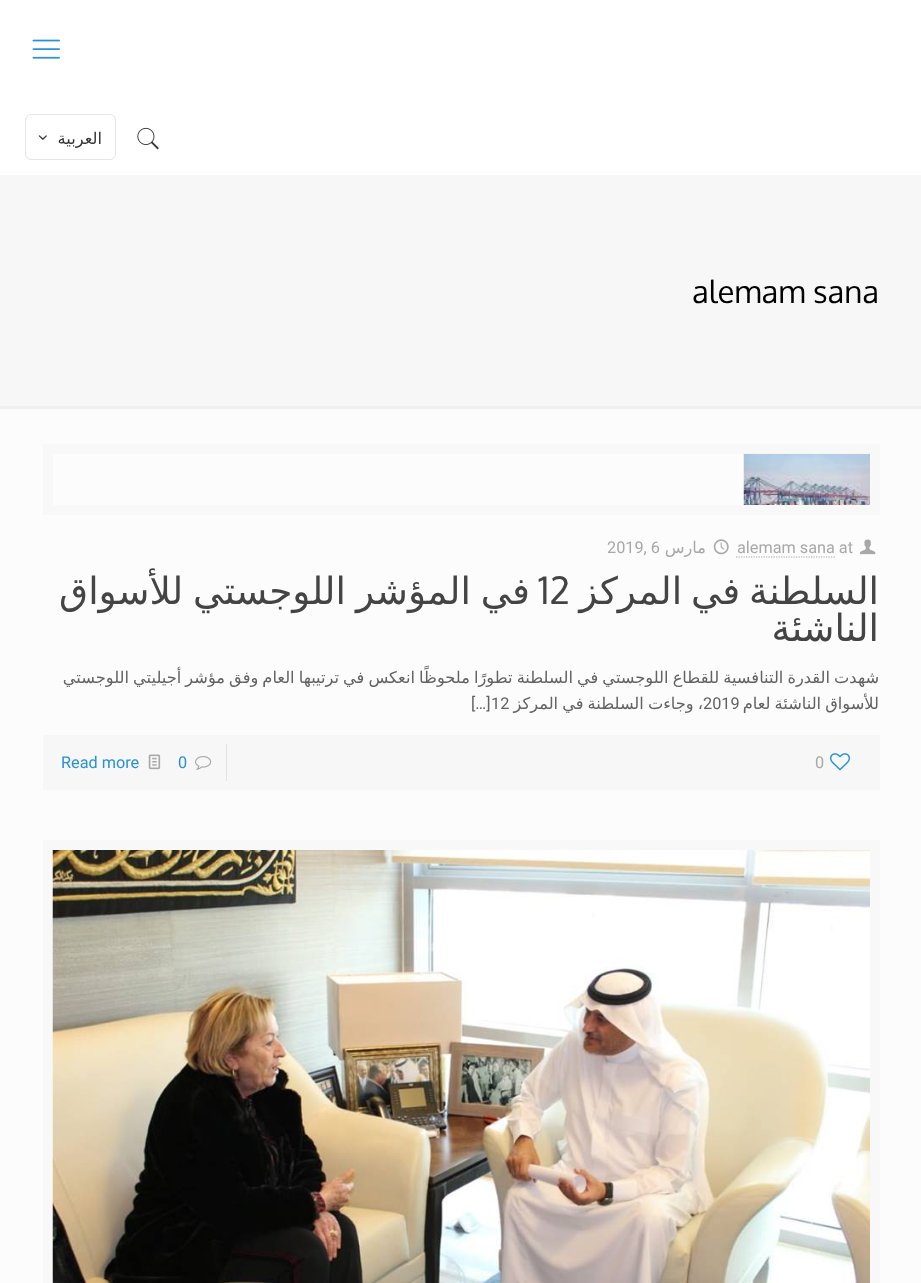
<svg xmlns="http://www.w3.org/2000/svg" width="921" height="1283">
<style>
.a{font:16.25px DejaVu Sans;direction:rtl;fill:#333}
.b{font:31.25px Oxygen;fill:#000}
.c{font:16.25px Roboto;fill:#a8a8a8}
.d{font:16.25px DejaVu Sans;direction:rtl;fill:#a8a8a8}
.e{font:37.5px DejaVu Sans;direction:rtl;fill:#444}
.f{font:37.5px Oxygen;fill:#444}
.g{font:16.25px DejaVu Sans;direction:rtl;fill:#626262}
.h{font:16.25px Roboto;fill:#626262}
.i{font:16.25px Roboto;fill:#2991d6}
</style>
<rect width="100%" height="100%" fill="#fcfcfc"/>
<path fill="#fff" d="M0 0h921v175H0z"/>
<image href="1.png" x="32" y="39" width="28" height="20"/>
<image href="2.png" x="137" y="127" width="22" height="23"/>
<rect fill="none" stroke="#e6e6e6" x="25.5" y="114.5" width="90" height="45" rx="5.5"/>
<image href="3.png" x="38" y="135" width="9" height="5"/>
<path fill="#f7f7f7" d="M0 175h921v231H0z"/>
<path fill="#efefef" d="M0 406h921v3H0z"/>
<path fill="none" stroke="#f8f8f8" stroke-width="10" d="M48 449h827v61H48z"/>
<image href="4.png" x="743" y="453" width="127" height="52"/>
<image href="5.png" x="860" y="539" width="16" height="16"/>
<path fill="none" stroke="#a8a8a8" stroke-width="1.2" stroke-dasharray="1.25 1.25" d="M736 557h99"/>
<image href="6.png" x="713" y="539" width="16" height="16"/>
<path fill="#f7f7f7" d="M43 735h837v55H43z"/>
<image href="7.png" x="830" y="753" width="20" height="18"/>
<path fill="#e3e3e3" d="M226 744h1v37H226z"/>
<image href="8.png" x="195" y="756" width="17" height="14"/>
<image href="9.png" x="148" y="754" width="13" height="16"/>
<path fill="none" stroke="#f8f8f8" stroke-width="10" d="M48 845h827v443H48z"/>
<image href="10.png" x="52" y="850" width="818" height="433"/>
<text class="a" x="102" y="144">العربية</text>
<text class="b" x="692" y="303">alemam sana</text>
<text class="c" x="737" y="553">alemam sana at</text>
<text class="d" x="706" y="553">مارس</text>
<text class="c" x="607" y="553">2019, 6</text>
<text class="e" x="879" y="604" word-spacing="-3">السلطنة في المركز</text>
<text class="f" x="538" y="604">12</text>
<text class="e" x="530" y="604" word-spacing="-2">في المؤشر اللوجستي للأسواق</text>
<text class="e" x="879" y="641">الناشئة</text>
<text class="g" x="879" y="683" word-spacing="-1.1">شهدت القدرة التنافسية للقطاع اللوجستي في السلطنة تطورًا ملحوظًا انعكس في ترتيبها العام وفق مؤشر أجيليتي اللوجستي</text>
<text class="g" x="879" y="709" word-spacing="-1.1">للأسواق الناشئة لعام</text>
<text class="g" x="703" y="709" word-spacing="-1.1">، وجاءت السلطنة في المركز</text>
<text class="h" x="703" y="709">2019</text>
<text class="h" x="491" y="709">12</text>
<text class="h" x="471" y="709">[…]</text>
<text class="c" x="815" y="768">0</text>
<text class="i" x="178" y="768">0</text>
<text class="i" x="61" y="768">Read more</text>
</svg>
